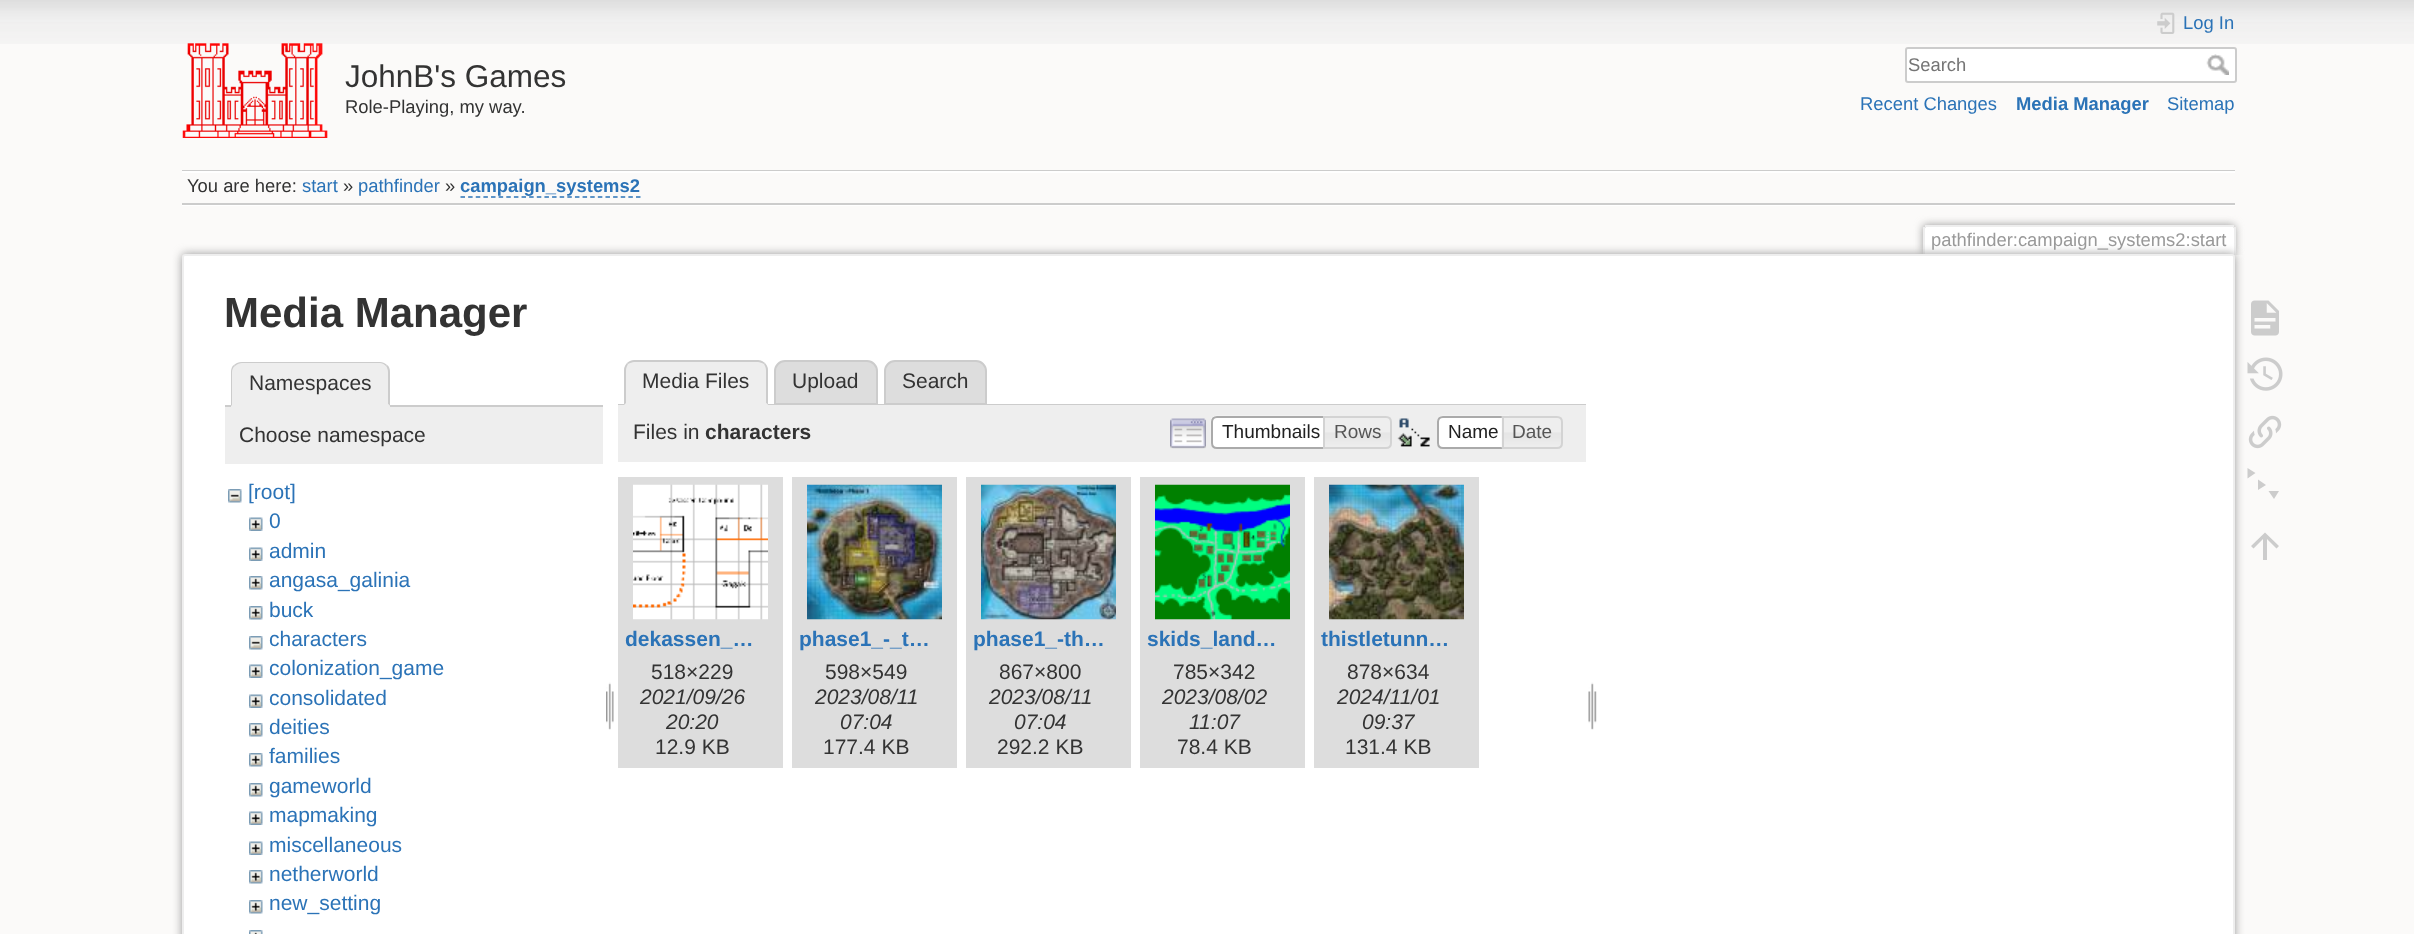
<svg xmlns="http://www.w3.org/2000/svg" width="2414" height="934">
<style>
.a{font:31.5px Liberation Sans;fill:#333}
.b{font:18.4px Liberation Sans;fill:#333}
.c{font:18.4px Liberation Sans;fill:#2b73b7}
.d{font:18.4px Liberation Sans;fill:#757575}
.e{font:bold 18.4px Liberation Sans;fill:#2b73b7}
.f{font:18.4px Liberation Sans;fill:#999}
.g{font:bold 42px Liberation Sans;fill:#333}
.h{font:21px Liberation Sans;fill:#333}
.i{font:21px Liberation Sans;fill:#2b73b7}
.j{font:bold 21px Liberation Sans;fill:#333}
.k{font:19px Liberation Sans;fill:#212121}
.l{font:19px Liberation Sans;fill:#555}
.m{font:bold 21px Liberation Sans;fill:#2b73b7}
.n{font:italic 21px Liberation Sans;fill:#333}
</style>
<defs>
<clipPath id="clip1"><path d="M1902 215h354v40H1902z"/></clipPath>
</defs>
<rect width="100%" height="100%" fill="#fbfaf9"/>
<image href="1.png" x="0" y="0" width="2414" height="44"/>
<image href="2.png" x="182" y="43" width="146" height="95"/>
<image href="3.png" x="2157" y="12" width="18" height="22"/>
<rect fill="#fff" stroke="#ccc" stroke-width="2" x="1906" y="48" width="330" height="34" rx="2"/>
<image href="4.png" x="2206" y="54" width="23" height="21"/>
<path fill="#ccc" d="M182 170h2053v1H182z"/>
<path fill="#fff" d="M182 205h2053v1H182z"/>
<path fill="#fff" d="M182 171h2053v2H182z"/>
<path fill="#ccc" d="M182 203h2053v2H182z"/>
<path fill="none" stroke="#2b73b7" stroke-width="1.5" stroke-dasharray="4.5 3.13" d="M460.5 197h180"/>
<g clip-path="url(#clip1)">
<rect fill="#999" filter="blur(4.5px)" x="1923" y="225" width="312" height="30" rx="3"/>
</g>
<path fill="#fff" d="M1926.5 227h306c1 0 1.5 .5 1.5 1.5v26.5h-309v-26.5c0-1 .5-1.5 1.5-1.5z"/>
<path fill="#eee" d="M1925 225h309v2H1925z"/>
<path fill="#eee" d="M2234 227h2v28H2234z"/>
<path fill="#eee" d="M1923 227h2v28H1923z"/>
<rect fill="#999" filter="blur(5px)" x="182" y="254" width="2053" height="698" rx="3"/>
<rect fill="#fff" stroke="#eee" stroke-width="2" x="183" y="255" width="2051" height="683" rx="2"/>
<path fill="#ccc" d="M225 405h378v2H225z"/>
<path fill="#eee" d="M242 362h137c6 0 11 5 11 11v34h-159v-34c0-6 5-11 11-11z"/>
<path fill="#ccc" d="M242 362c-3 0-6 1-8 3l1 1c2-2 5-3 7-3h138c2 0 4 1 6 3l1-1c-2-2-5-3-7-3z"/>
<path fill="#ccc" d="M387 365c2 1 3 4 3 7v34l-2-2v-32c0-2-1-5-2-6z"/>
<path fill="#eee" d="M390 406h-158v-1h156v-1z"/>
<path fill="#ccc" d="M231 372v34l1-1v-33c0-2 1-5 3-6l-1-1c-2 1-3 4-3 7z"/>
<path fill="#eee" d="M225 407h378v57H225z"/>
<image href="5.png" x="228" y="489" width="14" height="14"/>
<image href="6.png" x="249" y="517" width="14" height="14"/>
<image href="6.png" x="249" y="547" width="14" height="14"/>
<image href="7.png" x="249" y="576" width="14" height="14"/>
<image href="7.png" x="249" y="606" width="14" height="14"/>
<image href="5.png" x="249" y="636" width="14" height="14"/>
<image href="6.png" x="249" y="664" width="14" height="14"/>
<image href="6.png" x="249" y="694" width="14" height="14"/>
<image href="7.png" x="249" y="723" width="14" height="14"/>
<image href="7.png" x="249" y="753" width="14" height="14"/>
<image href="7.png" x="249" y="783" width="14" height="14"/>
<image href="6.png" x="249" y="811" width="14" height="14"/>
<image href="6.png" x="249" y="841" width="14" height="14"/>
<image href="7.png" x="249" y="870" width="14" height="14"/>
<image href="7.png" x="249" y="900" width="14" height="14"/>
<image href="8.png" x="249" y="930" width="14" height="4"/>
<image href="9.png" x="606" y="682" width="8" height="48"/>
<path fill="#ddd" stroke="#ccc" stroke-width="2" d="M785 361h82c5.5 0 10 4.5 10 10v33h-102v-33c0-5.5 4.5-10 10-10z"/>
<path fill="#ddd" stroke="#ccc" stroke-width="2" d="M895 361h81c5.5 0 10 4.5 10 10v33h-101v-33c0-5.5 4.5-10 10-10z"/>
<path fill="#ccc" d="M618 404h968v1H618z"/>
<path fill="#eee" d="M635 360h122c6 0 11 5 11 11v34h-144v-34c0-6 5-11 11-11z"/>
<path fill="#ccc" d="M634 360c-2 0-5 1-7 3l1 1c2-1 4-2 6-2h124c2 0 4 1 6 2l1-1c-2-2-5-3-7-3z"/>
<path fill="#ccc" d="M768 405v-35c0-2-1-5-3-7l-1 1c1 2 2 4 2 6v33z"/>
<path fill="#eee" d="M768 405l-2-2v1h-140v-1l-2 2z"/>
<path fill="#ccc" d="M624 405l2-2v-33c0-2 1-4 2-6l-1-1c-2 2-3 5-3 7z"/>
<path fill="#eee" d="M618 405h968v57H618z"/>
<image href="10.png" x="1170" y="418" width="36" height="31"/>
<path fill="#fff" d="M1217 416h114v33h-114c-3.5 0-6-2.5-6-6v-21c0-3.5 2.5-6 6-6z"/>
<image href="11.png" x="1210" y="415" width="120" height="31"/>
<path fill="none" stroke="#aaa" stroke-width="2" d="M1217 417h113v31h-113c-3 0-5-2-5-5v-21c0-3 2-5 5-5z"/>
<image href="12.png" x="1325" y="416" width="67" height="32"/>
<path fill="none" stroke="#d3d3d3" stroke-width="2" d="M1324 417h62c3 0 5 2 5 5v21c0 3-2 5-5 5h-62z"/>
<image href="13.png" x="1397" y="418" width="33" height="29"/>
<path fill="#fff" d="M1443 416h66v33h-66c-3.5 0-6-2.5-6-6v-21c0-3.5 2.5-6 6-6z"/>
<image href="14.png" x="1437" y="415" width="72" height="5"/>
<path fill="none" stroke="#aaa" stroke-width="2" d="M1443 417h65v31h-65c-3 0-5-2-5-5v-21c0-3 2-5 5-5z"/>
<image href="15.png" x="1501" y="416" width="62" height="33"/>
<path fill="none" stroke="#d3d3d3" stroke-width="2" d="M1503 417h54c3 0 5 2 5 5v21c0 3-2 5-5 5h-54z"/>
<path fill="#ddd" d="M618 477h165v291H618z"/>
<image href="16.png" x="633" y="484" width="135" height="136"/>
<path fill="#ddd" d="M792 477h165v291H792z"/>
<image href="17.png" x="807" y="484" width="135" height="136"/>
<path fill="#ddd" d="M966 477h165v291H966z"/>
<image href="18.png" x="981" y="484" width="135" height="136"/>
<path fill="#ddd" d="M1140 477h165v291H1140z"/>
<image href="19.png" x="1155" y="484" width="135" height="136"/>
<path fill="#ddd" d="M1314 477h165v291H1314z"/>
<image href="20.png" x="1329" y="484" width="135" height="136"/>
<image href="21.png" x="1588" y="682" width="9" height="48"/>
<image href="22.png" x="2251" y="300" width="28" height="36"/>
<image href="23.png" x="2247" y="357" width="36" height="34"/>
<image href="24.png" x="2248" y="415" width="34" height="34"/>
<path fill="#ccc" d="M2247.5 468l8 5l-8 5.5zm10.5 11.5l8 5.5l-8 5zm10.5 11.5h10.5l-5 8z"/>
<path fill="#ccc" d="M2267 560h-4v-21l-9.5 9.5l-2.5-2.5l14-13.5l14 13.5l-2.5 2.5l-9.5-9.5z"/>
<text class="a" x="345" y="87">JohnB's Games</text>
<text class="b" x="345" y="113">Role-Playing, my way.</text>
<text class="c" x="2183" y="29">Log In</text>
<text class="d" x="1908" y="71">Search</text>
<text class="c" x="1860" y="110">Recent Changes</text>
<text class="e" x="2016" y="110">Media Manager</text>
<text class="c" x="2167" y="110">Sitemap</text>
<text class="b" x="187" y="192">You are here:</text>
<text class="c" x="302" y="192">start</text>
<text class="b" x="343" y="192">»</text>
<text class="c" x="358" y="192">pathfinder</text>
<text class="b" x="445" y="192">»</text>
<text class="e" x="460" y="192">campaign_systems2</text>
<text class="f" x="1931" y="246">pathfinder:campaign_systems2:start</text>
<text class="g" x="224" y="327">Media Manager</text>
<text class="h" x="249" y="390">Namespaces</text>
<text class="h" x="239" y="442">Choose namespace</text>
<text class="i" x="248" y="499">[root]</text>
<text class="i" x="269" y="528">0</text>
<text class="i" x="269" y="558">admin</text>
<text class="i" x="269" y="587">angasa_galinia</text>
<text class="i" x="269" y="617">buck</text>
<text class="i" x="269" y="646">characters</text>
<text class="i" x="269" y="675">colonization_game</text>
<text class="i" x="269" y="705">consolidated</text>
<text class="i" x="269" y="734">deities</text>
<text class="i" x="269" y="763">families</text>
<text class="i" x="269" y="793">gameworld</text>
<text class="i" x="269" y="822">mapmaking</text>
<text class="i" x="269" y="852">miscellaneous</text>
<text class="i" x="269" y="881">netherworld</text>
<text class="i" x="269" y="910">new_setting</text>
<text class="h" x="642" y="388">Media Files</text>
<text class="h" x="792" y="388">Upload</text>
<text class="h" x="902" y="388">Search</text>
<text class="h" x="633" y="439">Files in</text>
<text class="j" x="705" y="439">characters</text>
<text class="k" x="1222" y="438">Thumbnails</text>
<text class="l" x="1334" y="438">Rows</text>
<text class="k" x="1448" y="438">Name</text>
<text class="l" x="1512" y="438">Date</text>
<text class="m" x="625" y="646">dekassen_…</text>
<text class="h" x="651" y="679">518×229</text>
<text class="n" x="640" y="704">2021/09/26</text>
<text class="n" x="666" y="729">20:20</text>
<text class="h" x="655" y="754">12.9 KB</text>
<text class="m" x="799" y="646">phase1_-_t…</text>
<text class="h" x="825" y="679">598×549</text>
<text class="n" x="815" y="704">2023/08/11</text>
<text class="n" x="840" y="729">07:04</text>
<text class="h" x="823" y="754">177.4 KB</text>
<text class="m" x="973" y="646">phase1_-th…</text>
<text class="h" x="999" y="679">867×800</text>
<text class="n" x="989" y="704">2023/08/11</text>
<text class="n" x="1014" y="729">07:04</text>
<text class="h" x="997" y="754">292.2 KB</text>
<text class="m" x="1147" y="646">skids_land…</text>
<text class="h" x="1173" y="679">785×342</text>
<text class="n" x="1162" y="704">2023/08/02</text>
<text class="n" x="1189" y="729">11:07</text>
<text class="h" x="1177" y="754">78.4 KB</text>
<text class="m" x="1321" y="646">thistletunn…</text>
<text class="h" x="1347" y="679">878×634</text>
<text class="n" x="1337" y="704">2024/11/01</text>
<text class="n" x="1362" y="729">09:37</text>
<text class="h" x="1345" y="754">131.4 KB</text>
</svg>
